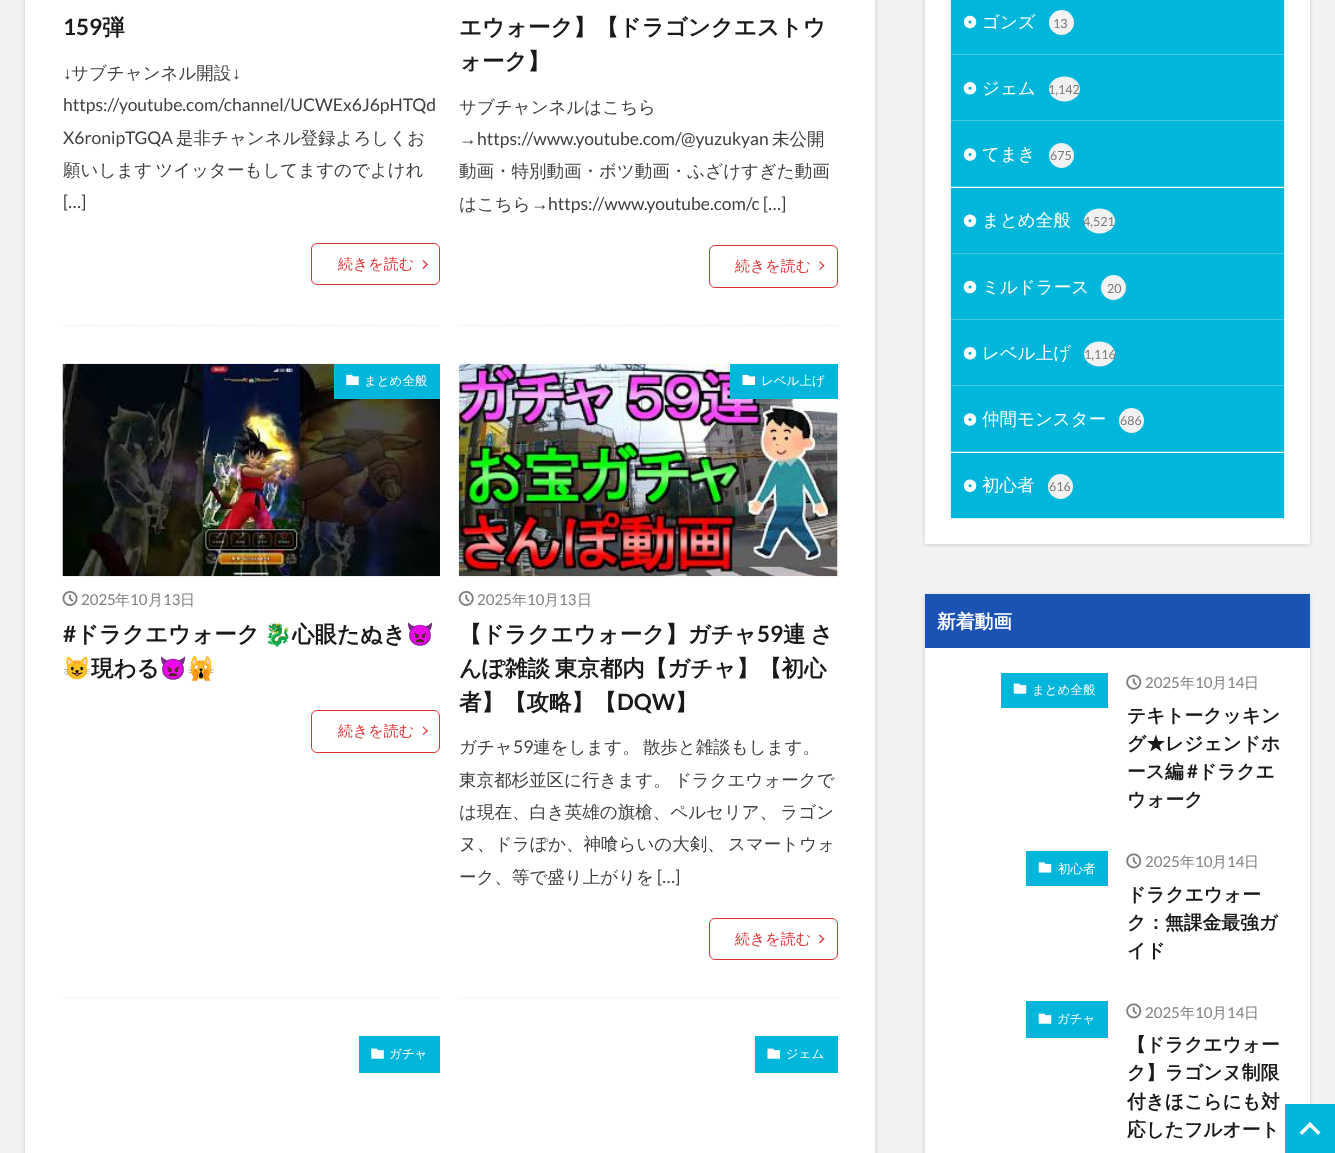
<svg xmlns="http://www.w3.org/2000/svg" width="1335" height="1153">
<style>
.a{font:bold 22.5px Lato;fill:#191919}
.b{font:bold 22.5px WenQuanYi Zen Hei;fill:#191919}
.c{font:17.5px Liberation Sans;fill:#404040}
.d{font:500 17.5px WenQuanYi Zen Hei;fill:#404040}
.e{font:17.5px Lato;fill:#404040}
.f{font:500 15px WenQuanYi Zen Hei;fill:#d33}
.g{font:500 12.5px WenQuanYi Zen Hei;fill:#fff}
.h{font:15px Lato;fill:#808080}
.i{font:500 15px WenQuanYi Zen Hei;fill:#808080}
.j{font:bold 22.5px Noto Color Emoji;fill:#191919}
.k{font:500 17.5px WenQuanYi Zen Hei;fill:#fff}
.l{font:12.5px Lato;fill:#797979}
.m{font:bold 18.75px WenQuanYi Zen Hei;fill:#fff}
.n{font:bold 18.75px WenQuanYi Zen Hei;fill:#191919}
.o{font:bold 18.75px Lato;fill:#191919}
</style>
<rect width="100%" height="100%" fill="#f2f2f2"/>
<path fill="#00000026" filter="blur(2px)" d="M25 -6h850v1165H25z"/>
<path fill="#fff" d="M25 0h850v1153H25z"/>
<path fill="none" stroke="#e6e6e6" stroke-width="1.2" stroke-dasharray="1.25 1.25" d="M62.5 325.5h377.5"/>
<rect fill="none" stroke="#d33" x="311.5" y="243.5" width="128" height="41" rx="5.5"/>
<path fill="#d33" d="M423.5 260l4.5 4.5l-1 .5l-4.5-4z"/>
<path fill="#d33" d="M427 263.5l1 1l-4.5 4.5l-1-1z"/>
<path fill="none" stroke="#e6e6e6" stroke-width="1.2" stroke-dasharray="1.25 1.25" d="M459 325.5h378.5"/>
<rect fill="none" stroke="#d33" x="709.5" y="245.5" width="128" height="42" rx="5.5"/>
<path fill="#d33" d="M820 261.5l4.5 4l-1 1l-4.5-4.5z"/>
<path fill="#d33" d="M823.5 265l1 .5l-4.5 4.5l-1-.5z"/>
<path fill="none" stroke="#e6e6e6" stroke-width="1.2" stroke-dasharray="1.25 1.25" d="M62.5 998h377.5"/>
<image href="1.png" x="62" y="363" width="378" height="214"/>
<path fill="#00b6db" d="M334 364h106v35H334z"/>
<image href="2.png" x="346" y="374" width="13" height="11"/>
<image href="3.png" x="62" y="591" width="16" height="15"/>
<rect fill="none" stroke="#d33" x="311.5" y="710.5" width="128" height="42" rx="5.5"/>
<path fill="#d33" d="M423.5 726.5l4.5 4.5l-1 .5l-4.5-4.5z"/>
<path fill="#d33" d="M427 730l1 1l-4.5 4l-1-.5z"/>
<path fill="none" stroke="#e6e6e6" stroke-width="1.2" stroke-dasharray="1.25 1.25" d="M459 998h378.5"/>
<image href="4.png" x="458" y="363" width="380" height="214"/>
<path fill="#00b6db" d="M730 364h108v35H730z"/>
<image href="5.png" x="742" y="374" width="13" height="11"/>
<image href="6.png" x="458" y="591" width="16" height="15"/>
<rect fill="none" stroke="#d33" x="709.5" y="918.5" width="128" height="41" rx="5.5"/>
<path fill="#d33" d="M820 934.5l4.5 4.5l-1 .5l-4.5-4z"/>
<path fill="#d33" d="M823.5 938l1 1l-4.5 4.5l-1-1z"/>
<path fill="#00b6db" d="M359 1036h81v37H359z"/>
<image href="7.png" x="371" y="1048" width="13" height="11"/>
<path fill="#00b6db" d="M755 1036h83v37H755z"/>
<image href="8.png" x="767" y="1048" width="13" height="11"/>
<path fill="#00000026" filter="blur(2px)" d="M925 -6h385v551H925z"/>
<path fill="#fff" d="M925 0h385v544H925z"/>
<path fill="#d9f4fa" d="M1285-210v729l-1-1v-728z"/>
<path fill="#00b6db26" d="M1285 519h-335l1-1h333z"/>
<path fill="#00b6db26" d="M950 519v-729h1v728z"/>
<path fill="#00b6db" d="M951 0h333v54H951z"/>
<image href="9.png" x="963" y="15" width="14" height="14"/>
<circle fill="#f2f2f2" cx="1061.5" cy="22.5" r="12.5"/>
<path fill="#40c8e4" d="M951 54h333v1H951z"/>
<path fill="#00b6db" d="M951 55h333v65H951z"/>
<image href="10.png" x="963" y="82" width="14" height="13"/>
<ellipse fill="#f2f2f2" cx="1064.5" cy="89" rx="15.5" ry="12.5"/>
<path fill="#40c8e4" d="M951 120h333v1H951z"/>
<path fill="#00b6db" d="M951 121h333v65H951z"/>
<image href="11.png" x="963" y="148" width="14" height="13"/>
<circle fill="#f2f2f2" cx="1061.5" cy="155.5" r="12.5"/>
<path fill="#40c8e4" d="M951 186h333v1H951z"/>
<path fill="#00b6db" d="M951 188h333v65H951z"/>
<image href="12.png" x="963" y="214" width="14" height="13"/>
<ellipse fill="#f2f2f2" cx="1099.5" cy="221" rx="15.5" ry="12.5"/>
<path fill="#40c8e4" d="M951 253h333v1H951z"/>
<path fill="#00b6db" d="M951 254h333v65H951z"/>
<image href="9.png" x="963" y="280" width="14" height="14"/>
<circle fill="#f2f2f2" cx="1113.5" cy="287.5" r="12.5"/>
<path fill="#40c8e4" d="M951 319h333v1H951z"/>
<path fill="#00b6db" d="M951 320h333v65H951z"/>
<image href="10.png" x="963" y="347" width="14" height="13"/>
<ellipse fill="#f2f2f2" cx="1099.5" cy="354" rx="15.5" ry="12.5"/>
<path fill="#40c8e4" d="M951 385h333v1H951z"/>
<path fill="#00b6db" d="M951 386h333v65H951z"/>
<image href="11.png" x="963" y="413" width="14" height="13"/>
<circle fill="#f2f2f2" cx="1131.5" cy="420.5" r="12.5"/>
<path fill="#40c8e4" d="M951 451h333v1H951z"/>
<path fill="#00b6db" d="M951 453h333v65H951z"/>
<image href="12.png" x="963" y="479" width="14" height="13"/>
<circle fill="#f2f2f2" cx="1060.5" cy="486.5" r="12.5"/>
<path fill="#00000026" filter="blur(2px)" d="M925 595h385v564H925z"/>
<path fill="#fff" d="M925 648h385v505H925z"/>
<path fill="#1b53b5" d="M925 594h385v54H925z"/>
<path fill="#00b6db" d="M1001 673h107v35H1001z"/>
<image href="13.png" x="1013" y="683" width="14" height="11"/>
<image href="14.png" x="1126" y="674" width="16" height="16"/>
<path fill="#00b6db" d="M1026 851h82v35H1026z"/>
<image href="15.png" x="1038" y="862" width="14" height="11"/>
<image href="16.png" x="1126" y="853" width="16" height="16"/>
<path fill="#00b6db" d="M1026 1001h82v37H1026z"/>
<image href="13.png" x="1038" y="1013" width="14" height="11"/>
<image href="16.png" x="1126" y="1003" width="16" height="16"/>
<path fill="#00b6db" d="M1285 1104h50v49H1285z"/>
<path fill="#fff" d="M1299.5 1132.5l10.5-10.5l2.5 2.5l-10.5 10.5z"/>
<path fill="#fff" d="M1307.5 1124.5l2.5-2.5l10.5 10.5l-2.5 2.5z"/>
<text class="a" x="63" y="35">159</text>
<text class="b" x="102" y="35">弾</text>
<text class="c" x="63" y="79">↓</text>
<text class="d" x="71" y="79">サブチャンネル開設</text>
<text class="c" x="232" y="79">↓</text>
<text class="e" x="63" y="111">https://youtube.com/channel/UCWEx6J6pHTQd</text>
<text class="e" x="63" y="144">X6ronipTGQA</text>
<text class="d" x="176" y="144">是非チャンネル登録よろしくお</text>
<text class="d" x="63" y="176" word-spacing="-2">願いします ツイッターもしてますのでよけれ</text>
<text class="e" x="63" y="208">[…]</text>
<text class="f" x="338" y="269">続きを読む</text>
<text class="b" x="459" y="35">エウォーク】【ドラゴンクエストウ</text>
<text class="b" x="459" y="69">ォーク】</text>
<text class="d" x="459" y="113">サブチャンネルはこちら</text>
<text class="c" x="459" y="145">→</text>
<text class="e" x="477" y="145">https://www.youtube.com/@yuzukyan</text>
<text class="d" x="772" y="145">未公開</text>
<text class="d" x="459" y="177">動画・特別動画・ボツ動画・ふざけすぎた動画</text>
<text class="d" x="459" y="210">はこちら</text>
<text class="c" x="531" y="210">→</text>
<text class="e" x="548" y="210">https://www.youtube.com/c […]</text>
<text class="f" x="735" y="271">続きを読む</text>
<text class="g" x="364" y="385">まとめ全般</text>
<text class="h" x="81" y="605">2025</text>
<text class="i" x="115" y="605">年</text>
<text class="h" x="130" y="605">10</text>
<text class="i" x="148" y="605">月</text>
<text class="h" x="163" y="605">13</text>
<text class="i" x="180" y="605">日</text>
<text class="a" x="63" y="642">#</text>
<text class="b" x="76" y="642">ドラクエウォーク</text>
<text class="j" x="264" y="642">🐉</text>
<text class="b" x="292" y="642">心眼たぬき</text>
<text class="j" x="406" y="642">👿</text>
<text class="j" x="63" y="676">😺</text>
<text class="b" x="91" y="676">現わる</text>
<text class="j" x="159" y="676">👿🙀</text>
<text class="f" x="338" y="736">続きを読む</text>
<text class="g" x="761" y="385">レベル上げ</text>
<text class="h" x="477" y="605">2025</text>
<text class="i" x="512" y="605">年</text>
<text class="h" x="527" y="605">10</text>
<text class="i" x="544" y="605">月</text>
<text class="h" x="559" y="605">13</text>
<text class="i" x="577" y="605">日</text>
<text class="b" x="459" y="642">【ドラクエウォーク】ガチャ</text>
<text class="a" x="757" y="642">59</text>
<text class="b" x="783" y="642" word-spacing="-2">連 さ</text>
<text class="b" x="459" y="676" word-spacing="-2">んぽ雑談 東京都内【ガチャ】【初心</text>
<text class="b" x="459" y="710">者】【攻略】【</text>
<text class="a" x="617" y="710">DQW</text>
<text class="b" x="675" y="710">】</text>
<text class="d" x="459" y="753">ガチャ</text>
<text class="e" x="513" y="753">59</text>
<text class="d" x="533" y="753" word-spacing="-2">連をします。 散歩と雑談もします。</text>
<text class="d" x="459" y="786" word-spacing="-2">東京都杉並区に行きます。 ドラクエウォークで</text>
<text class="d" x="459" y="818" word-spacing="-2">は現在、白き英雄の旗槍、ペルセリア、 ラゴン</text>
<text class="d" x="459" y="850" word-spacing="-2">ヌ、ドラぽか、神喰らいの大剣、 スマートウォ</text>
<text class="d" x="459" y="883">ーク、等で盛り上がりを</text>
<text class="e" x="657" y="883">[…]</text>
<text class="f" x="735" y="944">続きを読む</text>
<text class="g" x="389" y="1058">ガチャ</text>
<text class="g" x="786" y="1058">ジェム</text>
<text class="k" x="982" y="28">ゴンズ</text>
<text class="l" x="1053" y="28">13</text>
<text class="k" x="982" y="94">ジェム</text>
<text class="l" x="1048" y="94">1,142</text>
<text class="k" x="982" y="160">てまき</text>
<text class="l" x="1050" y="160">675</text>
<text class="k" x="982" y="226">まとめ全般</text>
<text class="l" x="1083" y="226">4,521</text>
<text class="k" x="982" y="293">ミルドラース</text>
<text class="l" x="1107" y="293">20</text>
<text class="k" x="982" y="359">レベル上げ</text>
<text class="l" x="1084" y="359">1,116</text>
<text class="k" x="982" y="425">仲間モンスター</text>
<text class="l" x="1120" y="425">686</text>
<text class="k" x="982" y="491">初心者</text>
<text class="l" x="1049" y="491">616</text>
<text class="m" x="937" y="628">新着動画</text>
<text class="g" x="1032" y="694">まとめ全般</text>
<text class="h" x="1145" y="688">2025</text>
<text class="i" x="1180" y="688">年</text>
<text class="h" x="1195" y="688">10</text>
<text class="i" x="1212" y="688">月</text>
<text class="h" x="1227" y="688">14</text>
<text class="i" x="1244" y="688">日</text>
<text class="n" x="1127" y="722">テキトークッキン</text>
<text class="n" x="1127" y="750">グ★レジェンドホ</text>
<text class="n" x="1127" y="778">ース編</text>
<text class="o" x="1187" y="778">#</text>
<text class="n" x="1198" y="778">ドラクエ</text>
<text class="n" x="1127" y="806">ウォーク</text>
<text class="g" x="1058" y="873">初心者</text>
<text class="h" x="1145" y="867">2025</text>
<text class="i" x="1180" y="867">年</text>
<text class="h" x="1195" y="867">10</text>
<text class="i" x="1212" y="867">月</text>
<text class="h" x="1227" y="867">14</text>
<text class="i" x="1244" y="867">日</text>
<text class="n" x="1127" y="901">ドラクエウォー</text>
<text class="n" x="1127" y="929">ク：無課金最強ガ</text>
<text class="n" x="1127" y="957">イド</text>
<text class="g" x="1057" y="1023">ガチャ</text>
<text class="h" x="1145" y="1018">2025</text>
<text class="i" x="1180" y="1018">年</text>
<text class="h" x="1195" y="1018">10</text>
<text class="i" x="1212" y="1018">月</text>
<text class="h" x="1227" y="1018">14</text>
<text class="i" x="1244" y="1018">日</text>
<text class="n" x="1127" y="1051">【ドラクエウォー</text>
<text class="n" x="1127" y="1079">ク】ラゴンヌ制限</text>
<text class="n" x="1127" y="1108">付きほこらにも対</text>
<text class="n" x="1127" y="1136">応したフルオート</text>
</svg>
